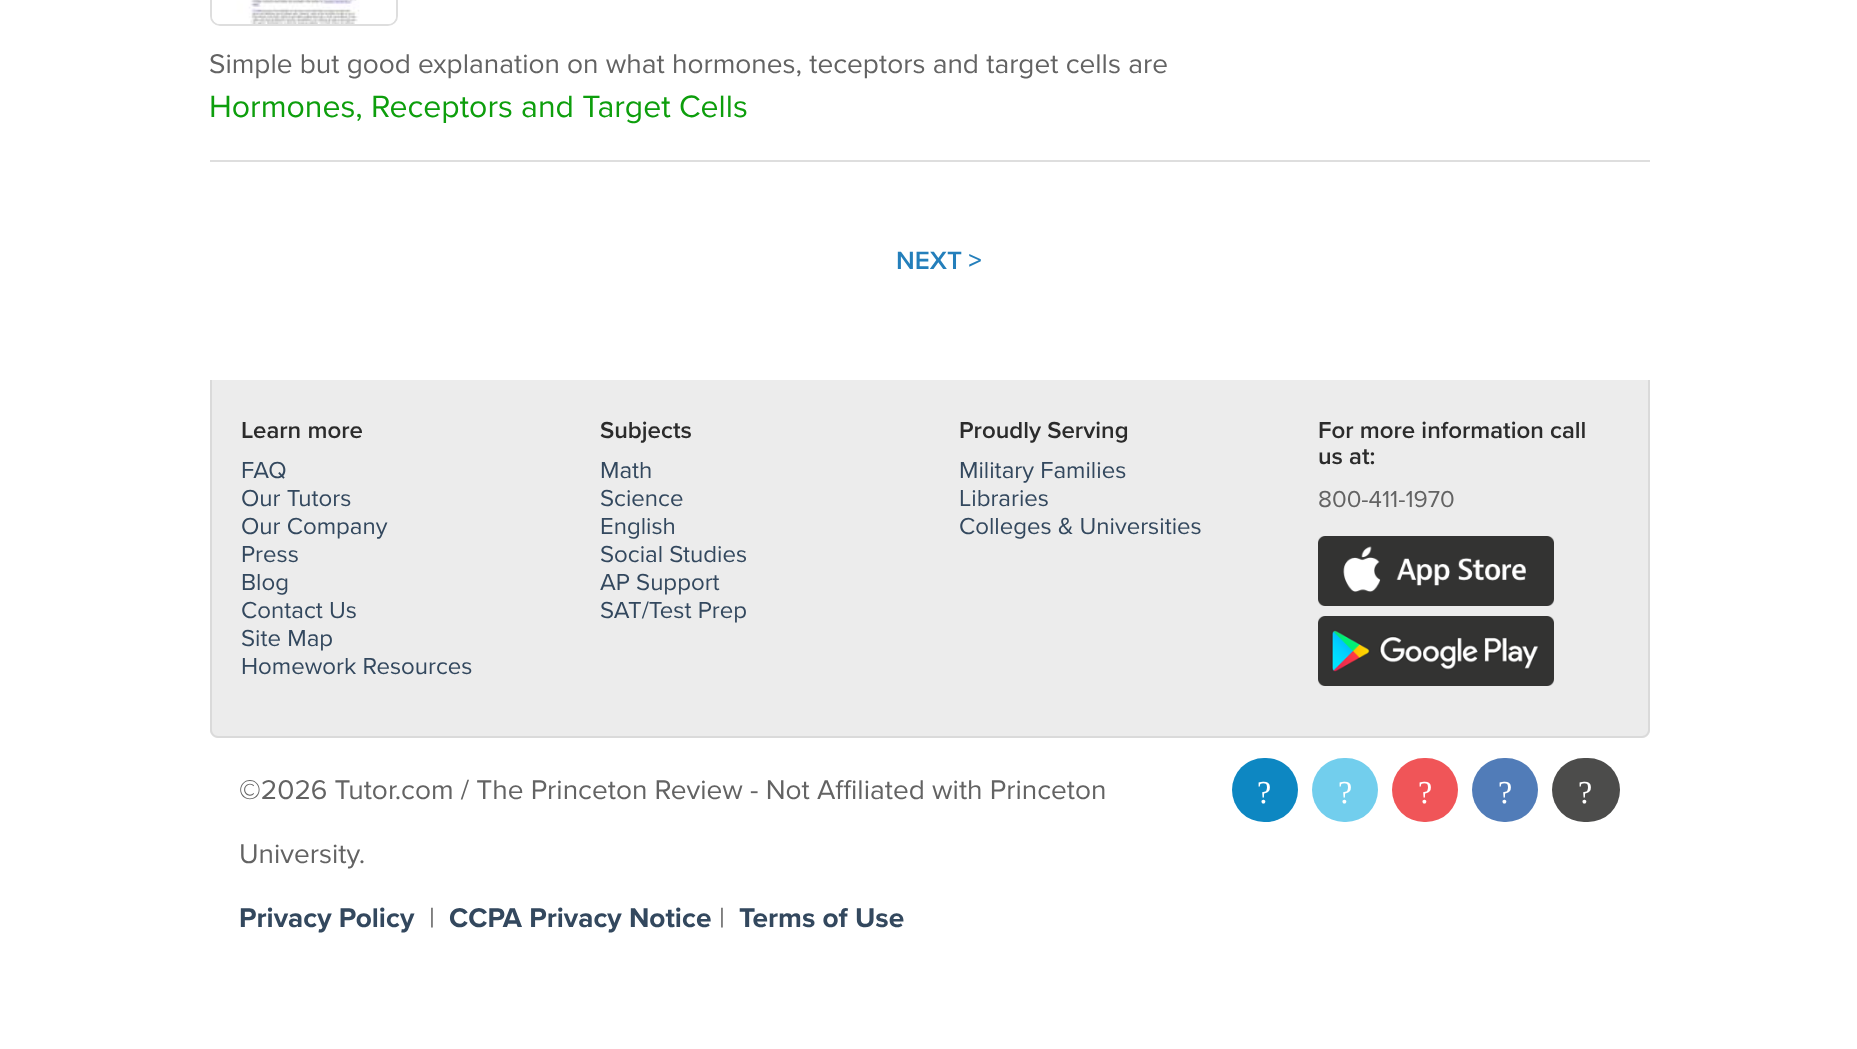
<svg xmlns="http://www.w3.org/2000/svg" width="1857" height="1049">
<style>
.a{font:28px Proxima Nova;fill:#636363}
.b{font:32px Proxima Nova;fill:#0d9e0c}
.c{font:600 26px Proxima Nova;fill:#247fbb}
.d{font:600 24px Proxima Nova;fill:#2b2b2b}
.e{font:24px Proxima Nova;fill:#33485e}
.f{font:24px Proxima Nova;fill:#636363}
.g{font:bold 28px Proxima Nova;fill:#33485e}
.h{font:32px Liberation Serif;fill:#fff}
</style>
<rect width="100%" height="100%" fill="#fff"/>
<path fill="#dedede" d="M210 160h1440v2H210z"/>
<rect fill="none" stroke="#dedede" stroke-width="2" x="211" y="-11" width="186" height="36" rx="9"/>
<image href="1.png" x="212" y="0" width="184" height="24"/>
<path fill="#ececec" d="M210 380h1440v350c0 4.5-3.5 8-8 8h-1424c-4.5 0-8-3.5-8-8z"/>
<path fill="#dadada" fill-rule="evenodd" d="M210 380h1440v350c0 4-4 8-8 8h-1424c-4 0-8-4-8-8zm2 0h1436v350c0 3-3 6-6 6h-1424c-3 0-6-3-6-6z"/>
<image href="2.png" x="1318" y="536" width="236" height="70"/>
<image href="3.png" x="1318" y="616" width="236" height="70"/>
<rect fill="#0d87c2" x="1232" y="758" width="66" height="64" rx="32"/>
<rect fill="#72ceed" x="1312" y="758" width="66" height="64" rx="32"/>
<rect fill="#f05558" x="1392" y="758" width="66" height="64" rx="32"/>
<rect fill="#517cb8" x="1472" y="758" width="66" height="64" rx="32"/>
<rect fill="#4c4c4b" x="1552" y="758" width="68" height="64" rx="32"/>
<text class="a" x="209" y="73">Simple but good explanation on what hormones, teceptors and target cells are</text>
<text class="b" x="209" y="117">Hormones, Receptors and Target Cells</text>
<text class="c" x="896" y="269">NEXT &gt;</text>
<text class="d" x="241" y="438">Learn more</text>
<text class="e" x="241" y="478">FAQ</text>
<text class="e" x="241" y="506">Our Tutors</text>
<text class="e" x="241" y="534">Our Company</text>
<text class="e" x="241" y="562">Press</text>
<text class="e" x="241" y="590">Blog</text>
<text class="e" x="241" y="618">Contact Us</text>
<text class="e" x="241" y="646">Site Map</text>
<text class="e" x="241" y="674">Homework Resources</text>
<text class="d" x="600" y="438">Subjects</text>
<text class="e" x="600" y="478">Math</text>
<text class="e" x="600" y="506">Science</text>
<text class="e" x="600" y="534">English</text>
<text class="e" x="600" y="562">Social Studies</text>
<text class="e" x="600" y="590">AP Support</text>
<text class="e" x="600" y="618">SAT/Test Prep</text>
<text class="d" x="959" y="438">Proudly Serving</text>
<text class="e" x="959" y="478">Military Families</text>
<text class="e" x="959" y="506">Libraries</text>
<text class="e" x="959" y="534">Colleges &amp; Universities</text>
<text class="d" x="1318" y="438">For more information call</text>
<text class="d" x="1318" y="464">us at:</text>
<text class="f" x="1318" y="507">800-411-1970</text>
<text class="a" x="239" y="799">©2026 Tutor.com / The Princeton Review - Not Affiliated with Princeton</text>
<text class="a" x="239" y="863">University.</text>
<text class="g" x="239" y="927">Privacy Policy</text>
<text class="a" x="429" y="927">|</text>
<text class="g" x="449" y="927">CCPA Privacy Notice</text>
<text class="a" x="719" y="927">|</text>
<text class="g" x="739" y="927">Terms of Use</text>
<text class="h" x="1257" y="803">?</text>
<text class="h" x="1338" y="803">?</text>
<text class="h" x="1418" y="803">?</text>
<text class="h" x="1498" y="803">?</text>
<text class="h" x="1578" y="803">?</text>
</svg>
